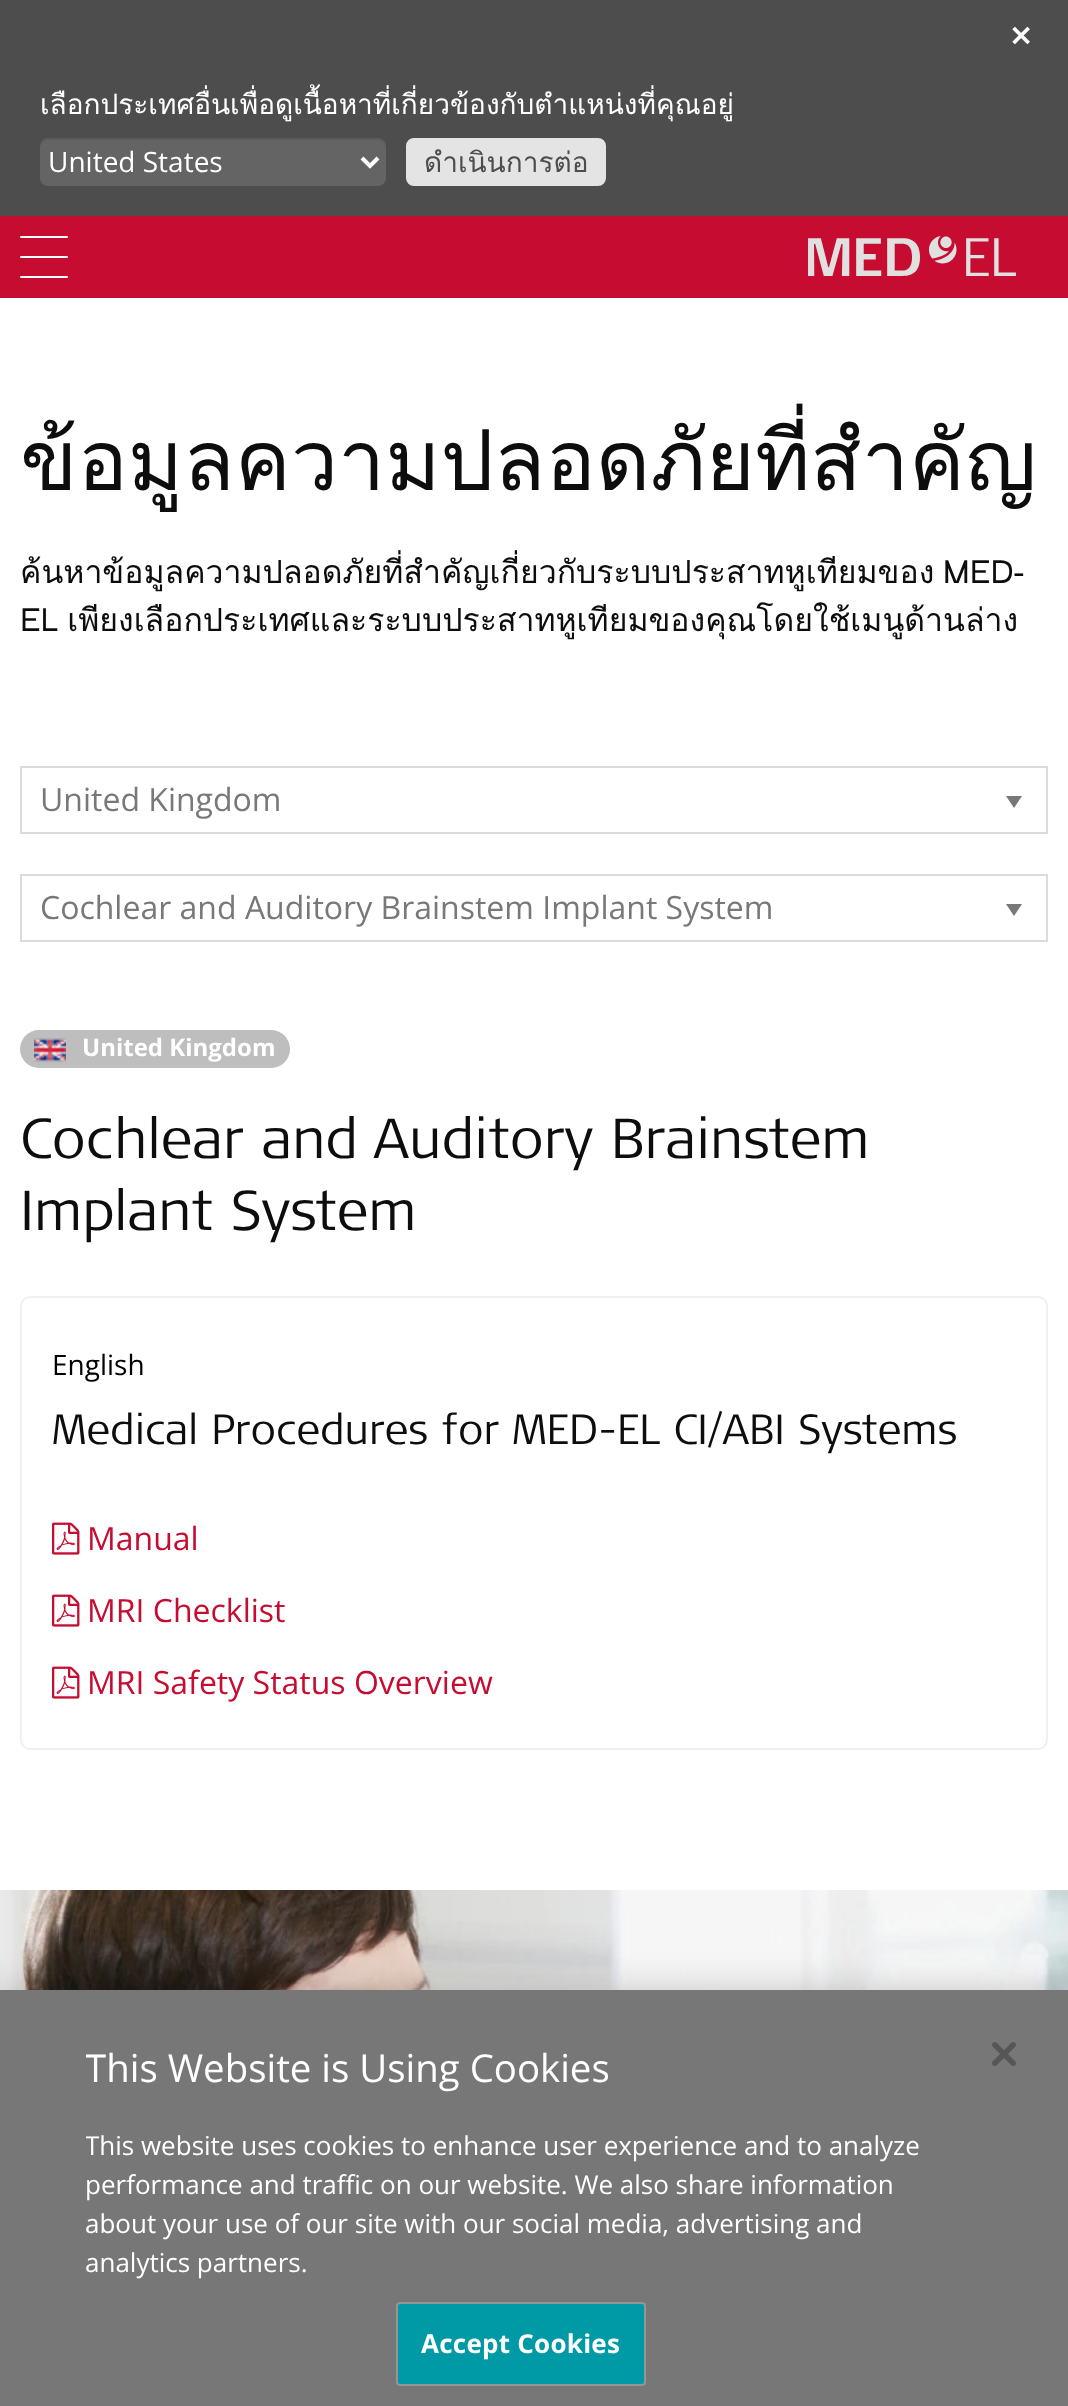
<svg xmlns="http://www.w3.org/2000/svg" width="1068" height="2406">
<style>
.a{font:bold 28px DejaVu Sans;fill:#fff}
.b{font:28px Loma;fill:#fff}
.c{font:28px Open Sans;fill:#fff}
.d{font:28px Loma;fill:#4d4d4d}
.e{font:84px Loma;fill:#0d0d0d}
.f{font:32px Loma;fill:#0d0d0d}
.g{font:32px Open Sans;fill:#787878}
.h{font:bold 24px Open Sans;fill:#fff}
.i{font:300 56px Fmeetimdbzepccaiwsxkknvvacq;fill:#0d0d0d}
.j{font:28px Open Sans;fill:#000}
.k{font:300 42px Fmeetimdbzepccaiwsxkknvvacq;fill:#0d0d0d}
.l{font:32px Open Sans;fill:#c60c30}
.m{font:38.4px Open Sans;fill:#fff}
.n{font:26px Open Sans;fill:#fff}
.o{font:bold 26px Open Sans;letter-spacing:0.25px;fill:#fff}
</style>
<defs>
<clipPath id="clip1"><path d="M86 2030h848v252H86z"/></clipPath>
</defs>
<rect width="100%" height="100%" fill="#fff"/>
<path fill="#4d4d4d" d="M0 0h1068v216H0z"/>
<rect fill="#646464" x="40" y="138" width="346" height="48" rx="8"/>
<path fill="#00000012" d="M48 140h330c4 0 8 4 8 8v-2c0-4-4-8-8-8h-330c-4 0-8 4-8 8v2c0-4 4-8 8-8z"/>
<path fill="none" stroke="#fff" stroke-width="4" d="M362 158l8 8l8-8"/>
<rect fill="#e4e4e4" stroke="#e4e4e4" stroke-width="2" x="407" y="139" width="198" height="46" rx="7"/>
<path fill="#c60c30" d="M0 216h1068v82H0z"/>
<rect fill="#fff" x="20" y="236" width="48" height="2" rx="1"/>
<rect fill="#fff" x="20" y="256" width="48" height="2" rx="1"/>
<rect fill="#fff" x="20" y="276" width="48" height="2" rx="1"/>
<image href="1.png" x="808" y="236" width="208" height="40"/>
<path fill="none" stroke="#dbdbdb" stroke-width="2" d="M21 767h1026v66H21z"/>
<path fill="#787878" d="M1014 808l-8-12h16z"/>
<path fill="none" stroke="#dbdbdb" stroke-width="2" d="M21 875h1026v66H21z"/>
<path fill="#787878" d="M1014 916l-8-12h16z"/>
<rect fill="#bebebe" x="20" y="1030" width="270" height="38" rx="19"/>
<image href="2.png" x="34" y="1038" width="32" height="24"/>
<rect fill="none" stroke="#f0f0f0" stroke-width="2" x="21" y="1297" width="1026" height="452" rx="9"/>
<image href="3.png" x="52" y="1522" width="28" height="33"/>
<image href="3.png" x="52" y="1594" width="28" height="33"/>
<image href="3.png" x="52" y="1666" width="28" height="33"/>
<image href="4.png" x="0" y="1890" width="1068" height="100"/>
<path fill="#00000033" filter="blur(18px)" d="M0 1990h1068v416H0z"/>
<path fill="#777" d="M0 1990h1068v416H0z"/>
<rect fill="#009aa6" stroke="#979594" stroke-width="2" x="397" y="2303" width="248" height="82" rx="3"/>
<image href="5.png" x="992" y="2042" width="24" height="24"/>
<text class="a" x="1009" y="46">✕</text>
<text class="b" x="40" y="114">เลือกประเทศอื่นเพื่อดูเนื้อหาที่เกี่ยวข้องกับตำแหน่งที่คุณอยู่</text>
<text class="c" x="48" y="172">United States</text>
<text class="d" x="424" y="172">ดำเนินการต่อ</text>
<text class="e" x="20" y="490">ข้อมูลความปลอดภัยที่สำคัญ</text>
<text class="f" x="20" y="583" word-spacing="-2">ค้นหาข้อมูลความปลอดภัยที่สำคัญเกี่ยวกับระบบประสาทหูเทียมของ MED-</text>
<text class="f" x="20" y="631" word-spacing="-2">EL เพียงเลือกประเทศและระบบประสาทหูเทียมของคุณโดยใช้เมนูด้านล่าง</text>
<text class="g" x="40" y="811">United Kingdom</text>
<text class="g" x="40" y="919">Cochlear and Auditory Brainstem Implant System</text>
<text class="h" x="82" y="1056">United Kingdom</text>
<text class="i" x="20" y="1158">Cochlear and Auditory Brainstem</text>
<text class="i" x="20" y="1230">Implant System</text>
<text class="j" x="52" y="1375">English</text>
<text class="k" x="52" y="1444">Medical Procedures for MED-EL CI/ABI Systems</text>
<text class="l" x="87" y="1550">Manual</text>
<text class="l" x="87" y="1622">MRI Checklist</text>
<text class="l" x="87" y="1694">MRI Safety Status Overview</text>
<g clip-path="url(#clip1)">
<text class="m" x="85" y="2082">This Website is Using Cookies</text>
<text class="n" x="85" y="2155">This website uses cookies to enhance user experience and to analyze</text>
</g>
<text class="n" x="85" y="2194">performance and traffic on our website. We also share information</text>
<text class="n" x="85" y="2233">about your use of our site with our social media, advertising and</text>
<text class="n" x="85" y="2272">analytics partners.</text>
<text class="o" x="421" y="2353">Accept Cookies</text>
</svg>
